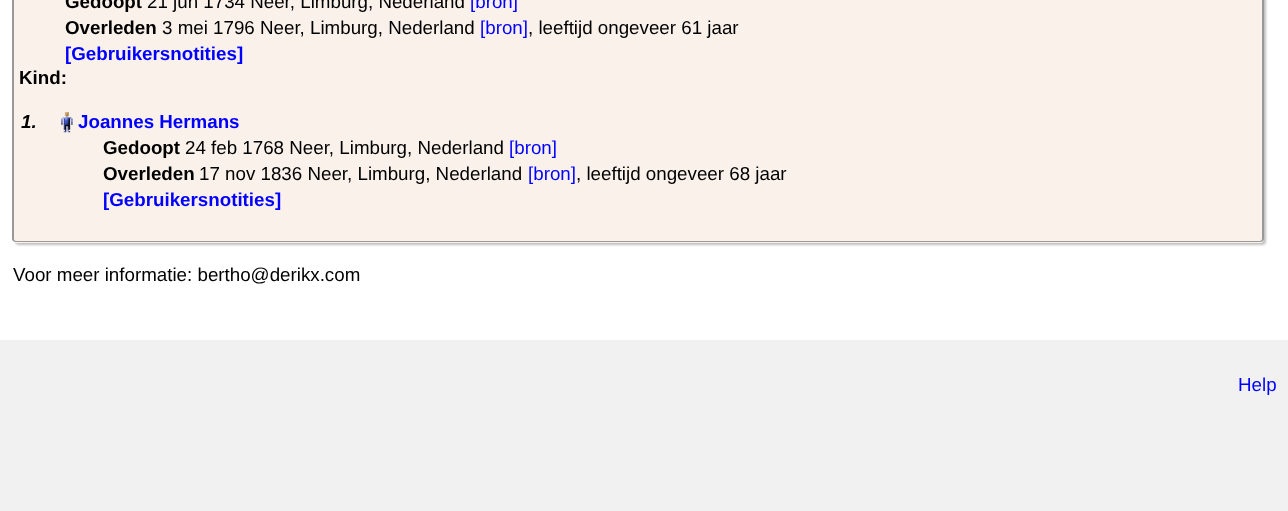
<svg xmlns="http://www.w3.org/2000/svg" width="1288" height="511">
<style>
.a{font:bold 18.75px Liberation Sans;fill:#000}
.b{font:18.75px Liberation Sans;fill:#000}
.c{font:18.75px Liberation Sans;fill:#00f}
.d{font:bold 18.75px Liberation Sans;fill:#00f}
.e{font:italic bold 18.75px Liberation Sans;fill:#000}
</style>
<rect width="100%" height="100%" fill="#fff"/>
<rect fill="#c0c0c0" filter="blur(1px)" x="15" y="-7" width="1251" height="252" rx="4"/>
<rect fill="#faf1eb" x="13" y="-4" width="1251" height="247" rx="4"/>
<path fill="#999" fill-rule="evenodd" d="M12-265h1252v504c0 2-2 3-4 3h-1244c-2 0-4-1-4-3zm2 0h1248v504c0 1-1 2-2 2h-1244c-1 0-2-1-2-2z"/>
<image href="1.png" x="61" y="112" width="12" height="21"/>
<path fill="#f1f1f1" d="M0 340h1288v171H0z"/>
<text class="a" x="65" y="8">Gedoopt</text>
<text class="b" x="147" y="8">21 jun 1734 Neer, Limburg, Nederland</text>
<text class="c" x="470" y="8">[bron]</text>
<text class="a" x="65" y="34">Overleden</text>
<text class="b" x="162" y="34">3 mei 1796 Neer, Limburg, Nederland</text>
<text class="c" x="480" y="34">[bron]</text>
<text class="b" x="528" y="34">, leeftijd ongeveer 61 jaar</text>
<text class="d" x="65" y="60">[Gebruikersnotities]</text>
<text class="a" x="19" y="84">Kind:</text>
<text class="e" x="21" y="128">1.</text>
<text class="d" x="78" y="128">Joannes Hermans</text>
<text class="a" x="103" y="154">Gedoopt</text>
<text class="b" x="185" y="154">24 feb 1768 Neer, Limburg, Nederland</text>
<text class="c" x="509" y="154">[bron]</text>
<text class="a" x="103" y="180">Overleden</text>
<text class="b" x="199" y="180">17 nov 1836 Neer, Limburg, Nederland</text>
<text class="c" x="528" y="180">[bron]</text>
<text class="b" x="576" y="180">, leeftijd ongeveer 68 jaar</text>
<text class="d" x="103" y="206">[Gebruikersnotities]</text>
<text class="b" x="13" y="281">Voor meer informatie: bertho@derikx.com</text>
<text class="c" x="1238" y="391">Help</text>
</svg>
